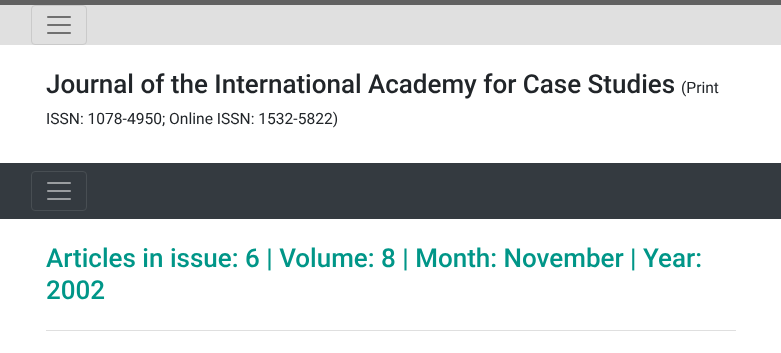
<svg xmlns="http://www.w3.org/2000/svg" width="781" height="353">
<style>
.a{font:500 26px Roboto;fill:#212529}
.b{font:15.6px Roboto;fill:#212529}
.c{font:500 26px Roboto;fill:#009688}
</style>
<rect width="100%" height="100%" fill="#fff"/>
<path fill="#e0e0e0" d="M0 5h781v40H0z"/>
<path fill="#616161" d="M0 0h781v5H0z"/>
<rect fill="none" stroke="#cacaca" x="31.5" y="5.5" width="55" height="39" rx="3.5"/>
<image href="1.png" x="47" y="16" width="24" height="18"/>
<path fill="#343a40" d="M0 163h781v56H0z"/>
<rect fill="none" stroke="#484e53" x="31.5" y="171.5" width="55" height="39" rx="3.5"/>
<image href="2.png" x="47" y="182" width="24" height="18"/>
<path fill="#dfdfdf" d="M46 330h690v1H46z"/>
<text class="a" x="46" y="93">Journal of the International Academy for Case Studies</text>
<text class="b" x="681" y="93">(Print</text>
<text class="b" x="46" y="124">ISSN: 1078-4950; Online ISSN: 1532-5822)</text>
<text class="c" x="46" y="267">Articles in issue: 6 | Volume: 8 | Month: November | Year:</text>
<text class="c" x="46" y="299">2002</text>
</svg>
